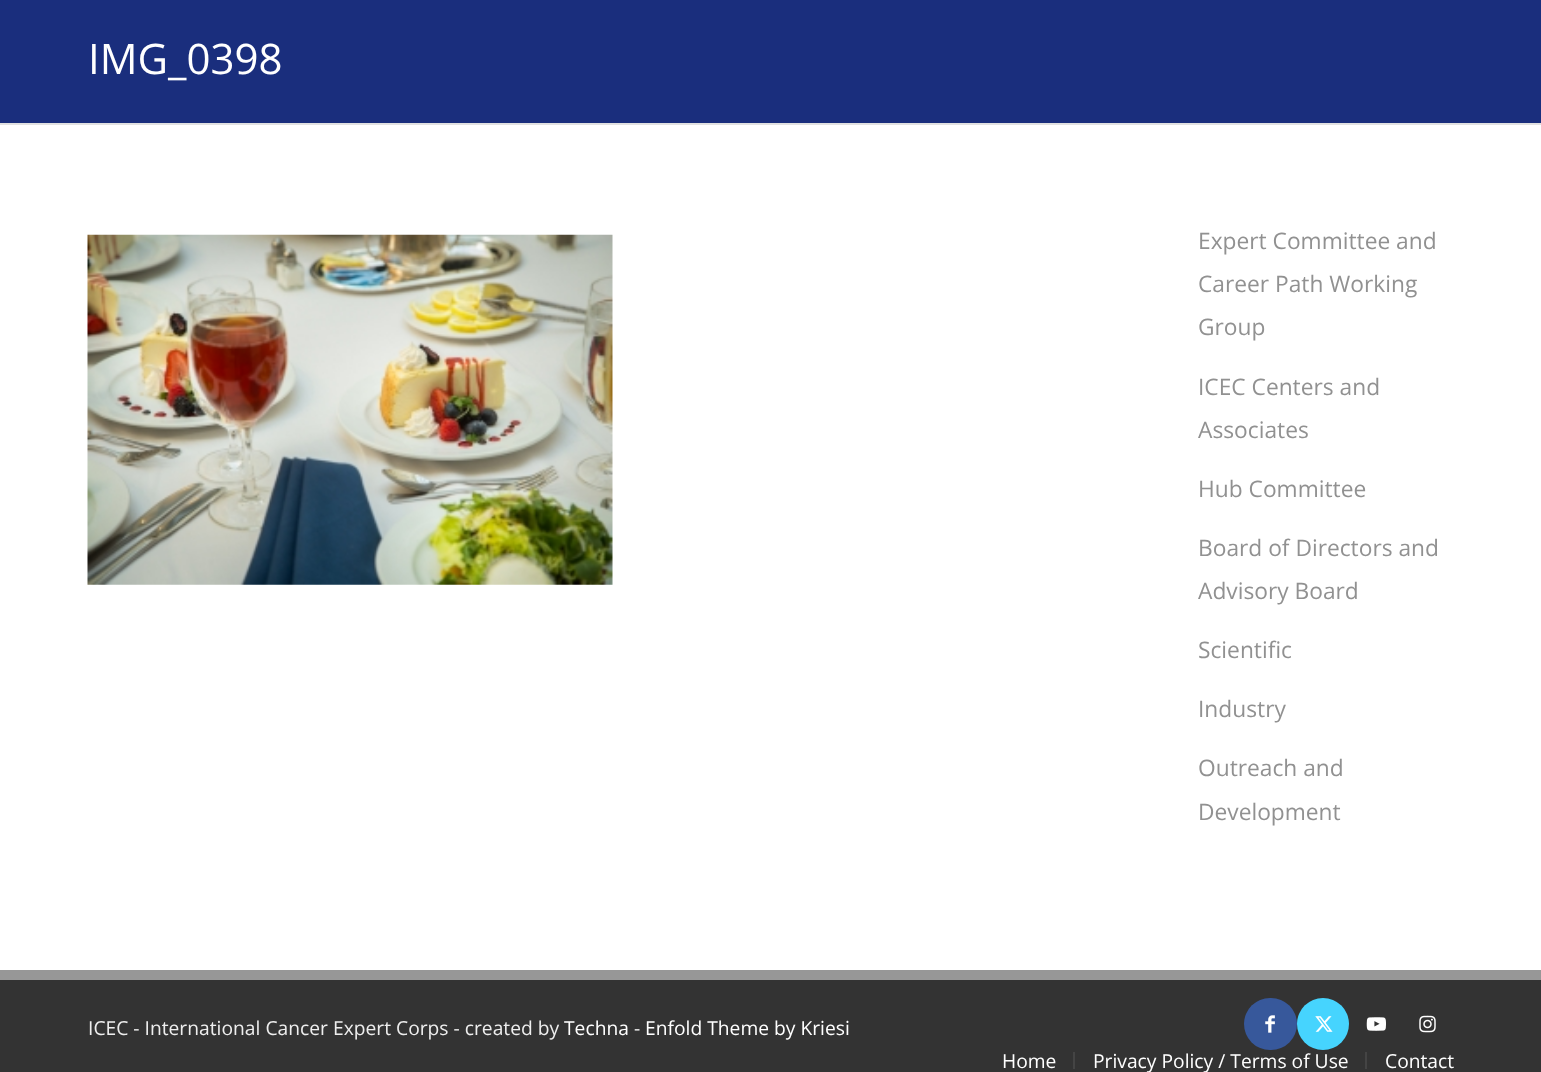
<svg xmlns="http://www.w3.org/2000/svg" width="1541" height="1072">
<style>
.a{font:42px Open Sans;fill:#fff}
.b{font:22.75px Open Sans;fill:#919191}
.c{font:19.25px Open Sans;fill:#eee}
.d{font:19.25px Open Sans;fill:#fff}
</style>
<rect width="100%" height="100%" fill="#fff"/>
<path fill="#1a2e7d" d="M0 0h1541v123H0z"/>
<path fill="#e1e1e1" d="M0 123h1541v2H0z"/>
<image href="1.png" x="87" y="234" width="526" height="351"/>
<path fill="#333" d="M0 980h1541v92H0z"/>
<path fill="#979797" d="M0 970h1541v10H0z"/>
<rect fill="#37589b" x="1244" y="998" width="53" height="52" rx="26"/>
<image href="2.png" x="1265" y="1015" width="10" height="18"/>
<circle fill="#46d4fe" cx="1323" cy="1024" r="26"/>
<image href="3.png" x="1315" y="1016" width="18" height="16"/>
<image href="4.png" x="1366" y="1017" width="20" height="14"/>
<image href="5.png" x="1419" y="1015" width="17" height="18"/>
<path fill="#444" d="M1073 1052h2v17H1073z"/>
<path fill="#444" d="M1365 1052h2v17H1365z"/>
<text class="a" x="88" y="74">IMG_0398</text>
<text class="b" x="1198" y="249">Expert Committee and</text>
<text class="b" x="1198" y="292">Career Path Working</text>
<text class="b" x="1198" y="335">Group</text>
<text class="b" x="1198" y="395">ICEC Centers and</text>
<text class="b" x="1198" y="438">Associates</text>
<text class="b" x="1198" y="497">Hub Committee</text>
<text class="b" x="1198" y="556">Board of Directors and</text>
<text class="b" x="1198" y="599">Advisory Board</text>
<text class="b" x="1198" y="658">Scientific</text>
<text class="b" x="1198" y="717">Industry</text>
<text class="b" x="1198" y="776">Outreach and</text>
<text class="b" x="1198" y="820">Development</text>
<text class="c" x="88" y="1035">ICEC - International Cancer Expert Corps - created by</text>
<text class="d" x="564" y="1035">Techna</text>
<text class="c" x="634" y="1035">-</text>
<text class="d" x="645" y="1035">Enfold Theme by Kriesi</text>
<text class="d" x="1002" y="1068">Home</text>
<text class="d" x="1093" y="1068">Privacy Policy / Terms of Use</text>
<text class="d" x="1385" y="1068">Contact</text>
</svg>
